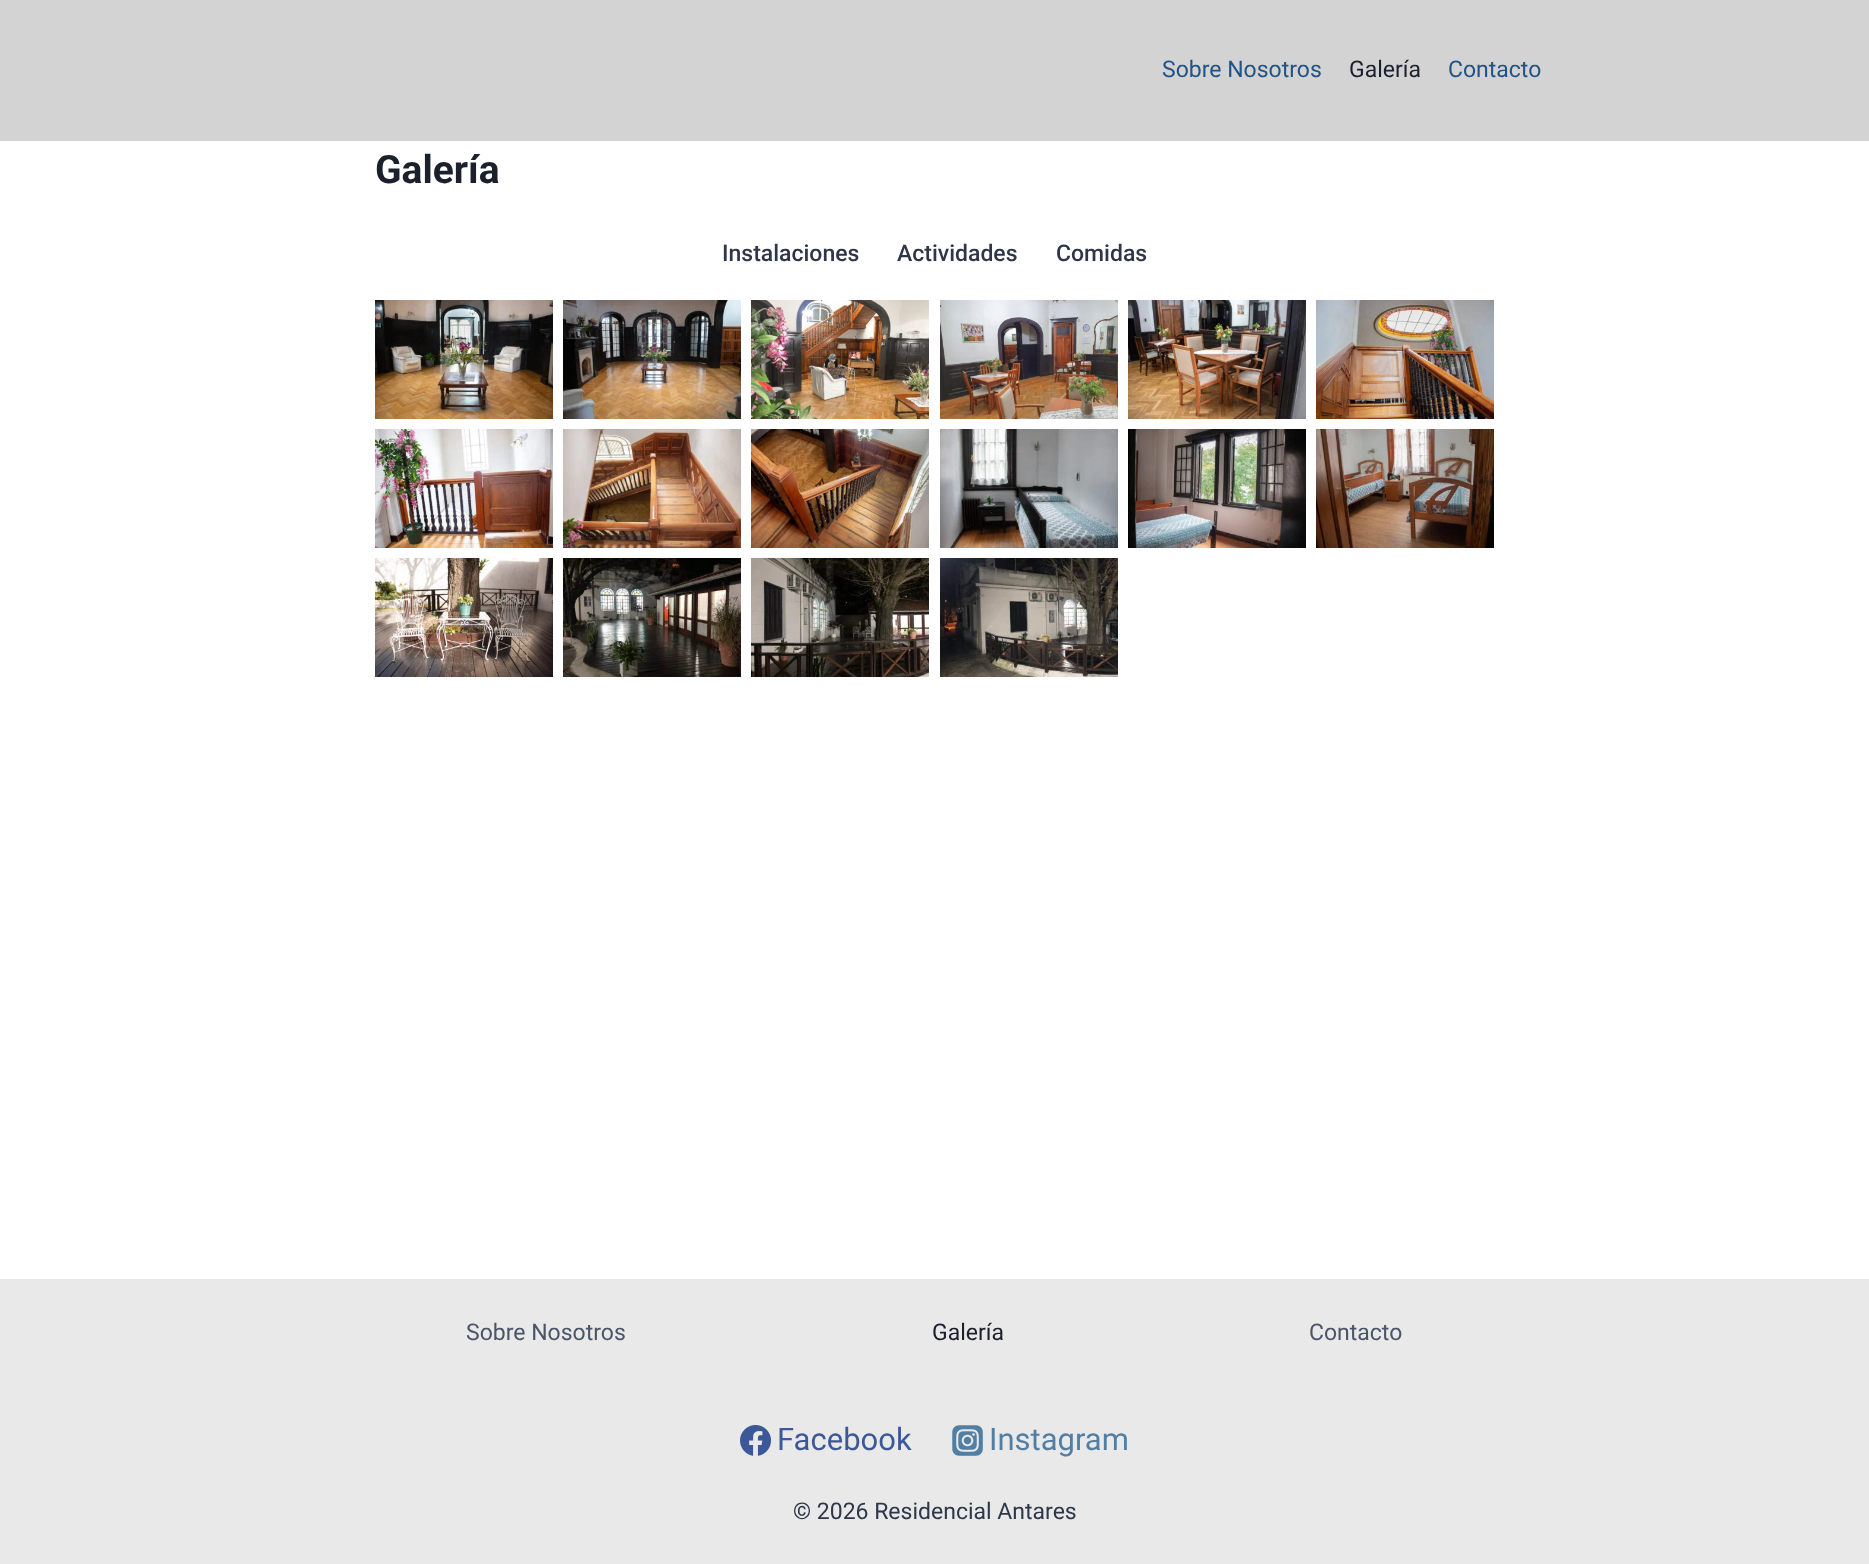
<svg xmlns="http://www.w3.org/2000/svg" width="1869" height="1564">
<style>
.a{font:23px Roboto;fill:#215387}
.b{font:23px Roboto;fill:#1a202c}
.c{font:bold 39px Roboto;fill:#1a202c}
.d{font:500 23px Roboto;fill:#2d3748}
.e{font:23px Roboto;fill:#4a5568}
.f{font:31px Roboto;fill:#3b5998}
.g{font:31px Roboto;fill:#517fa4}
.h{font:23px Roboto;fill:#2d3748}
</style>
<rect width="100%" height="100%" fill="#fff"/>
<path fill="#d3d3d3" d="M0 0h1869v141H0z"/>
<image href="1.png" x="375" y="300" width="178" height="119"/>
<image href="2.png" x="563" y="300" width="178" height="119"/>
<image href="3.png" x="751" y="300" width="178" height="119"/>
<image href="4.png" x="940" y="300" width="178" height="119"/>
<image href="5.png" x="1128" y="300" width="178" height="119"/>
<image href="6.png" x="1316" y="300" width="178" height="119"/>
<image href="7.png" x="375" y="429" width="178" height="119"/>
<image href="8.png" x="563" y="429" width="178" height="119"/>
<image href="9.png" x="751" y="429" width="178" height="119"/>
<image href="10.png" x="940" y="429" width="178" height="119"/>
<image href="11.png" x="1128" y="429" width="178" height="119"/>
<image href="12.png" x="1316" y="429" width="178" height="119"/>
<image href="13.png" x="375" y="558" width="178" height="119"/>
<image href="14.png" x="563" y="558" width="178" height="119"/>
<image href="15.png" x="751" y="558" width="178" height="119"/>
<image href="16.png" x="940" y="558" width="178" height="119"/>
<path fill="#e9e9e9" d="M0 1279h1869v285H0z"/>
<image href="17.png" x="740" y="1425" width="31" height="31"/>
<image href="18.png" x="952" y="1425" width="31" height="31"/>
<text class="a" x="1162" y="77">Sobre Nosotros</text>
<text class="b" x="1349" y="77">Galería</text>
<text class="a" x="1448" y="77">Contacto</text>
<text class="c" x="375" y="183">Galería</text>
<text class="d" x="722" y="261">Instalaciones</text>
<text class="d" x="897" y="261">Actividades</text>
<text class="d" x="1056" y="261">Comidas</text>
<text class="e" x="466" y="1340">Sobre Nosotros</text>
<text class="b" x="932" y="1340">Galería</text>
<text class="e" x="1309" y="1340">Contacto</text>
<text class="f" x="777" y="1450">Facebook</text>
<text class="g" x="989" y="1450">Instagram</text>
<text class="h" x="793" y="1519">© 2026 Residencial Antares</text>
</svg>
